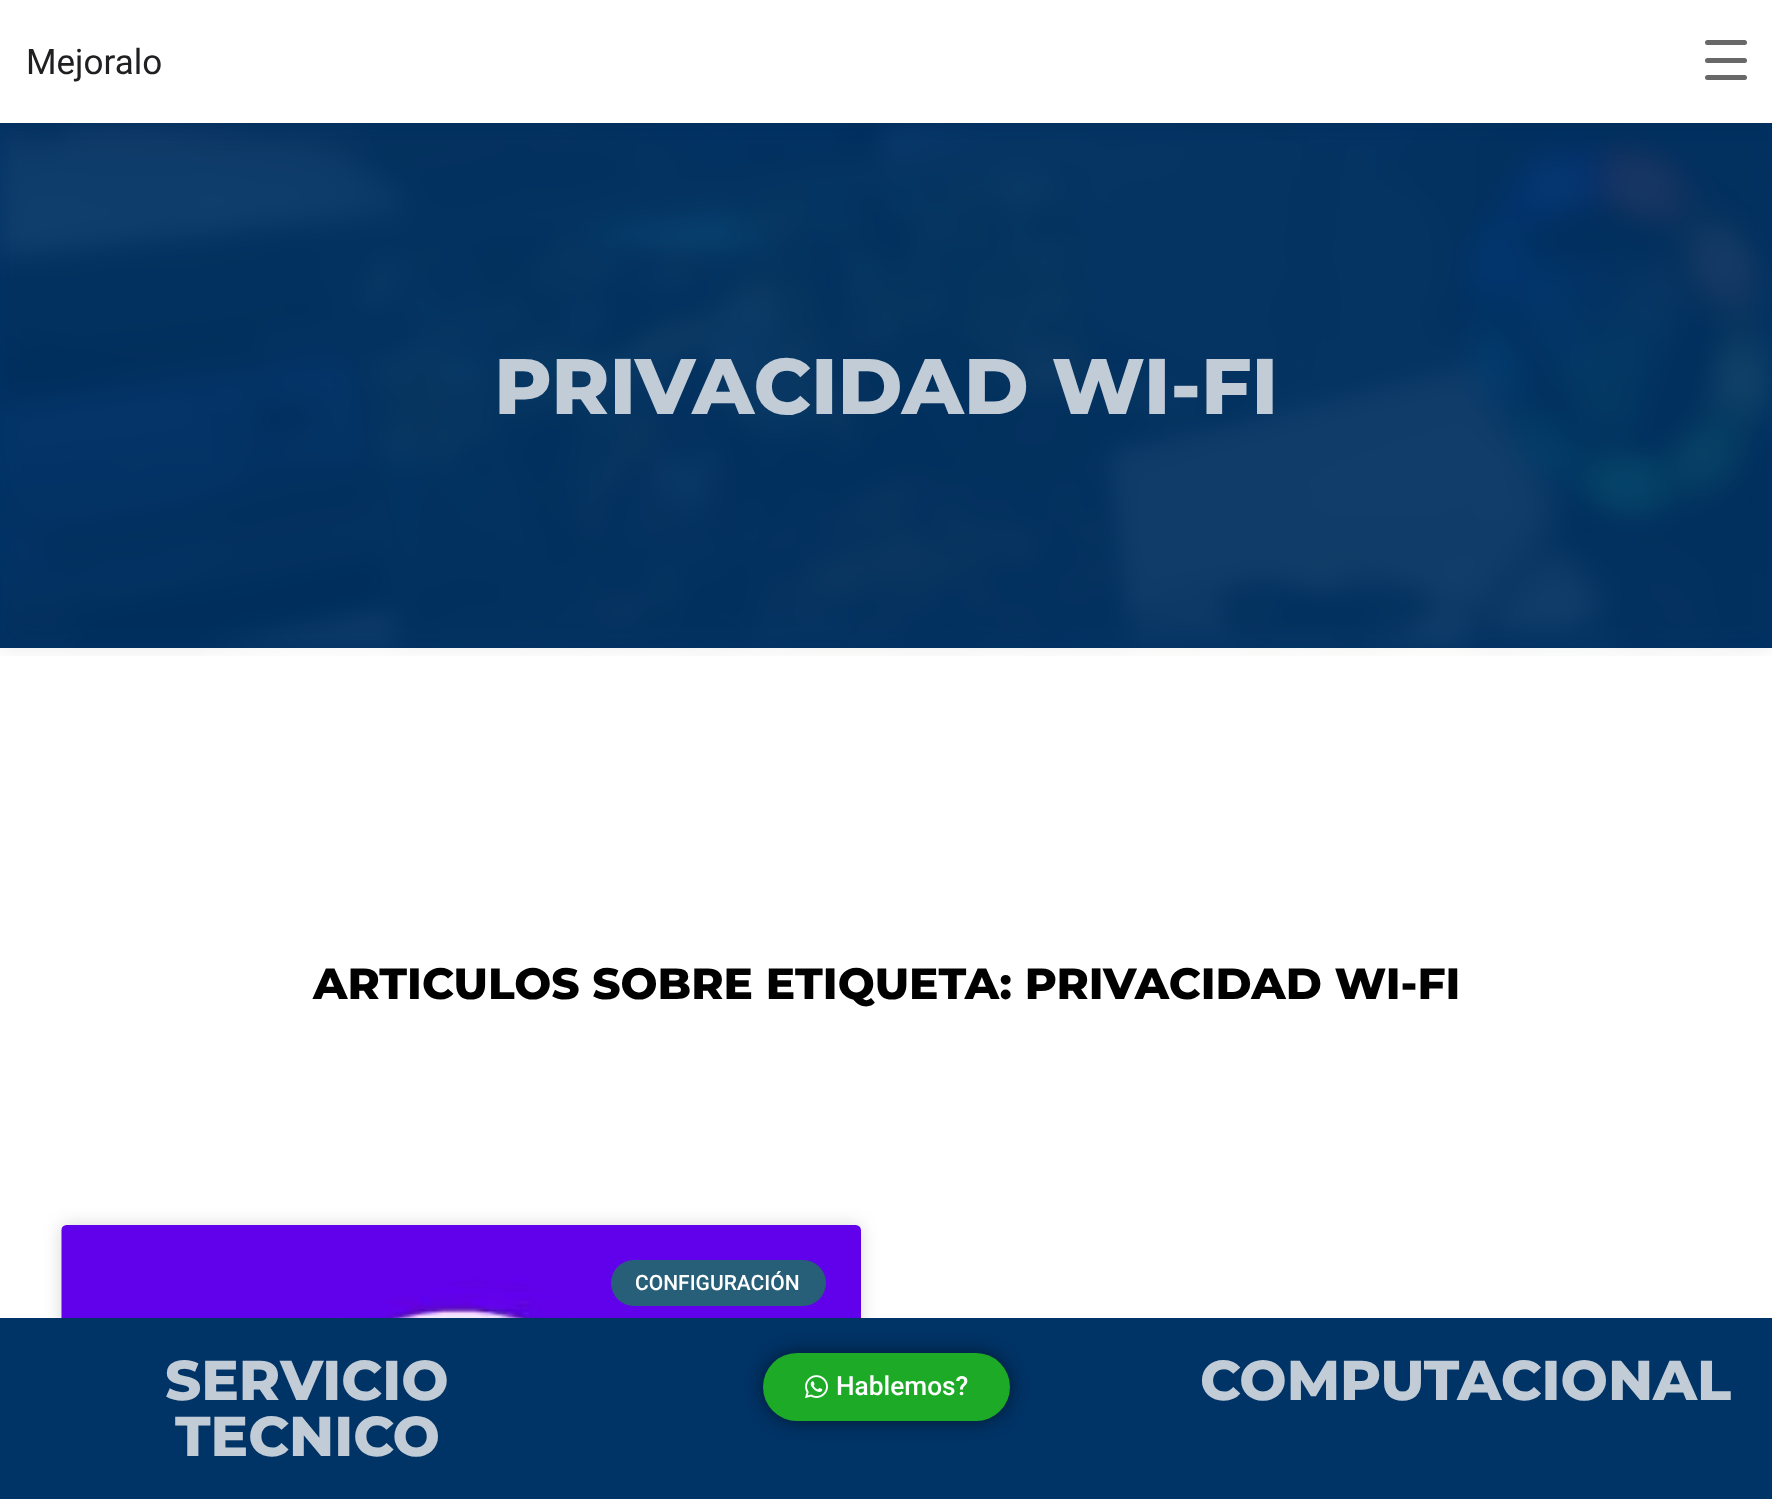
<svg xmlns="http://www.w3.org/2000/svg" width="1772" height="1499">
<style>
.a{font:35px Roboto;fill:#202022}
.b{font:800 78.75px Montserrat;fill:#c1ccd7}
.c{font:800 43.75px Montserrat;fill:#000}
.d{font:500 21px Roboto;fill:#fff}
.e{font:800 56px Montserrat;fill:#c1ccd7}
.f{font:500 26.25px Roboto;fill:#fff}
</style>
<rect width="100%" height="100%" fill="#fff"/>
<path fill="#036" d="M0 123h1772v525H0z"/>
<image href="1.png" x="0" y="123" width="1772" height="533"/>
<path fill="#0000001a" filter="blur(9px)" d="M0 0h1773v123H0z"/>
<path fill="#fff" d="M0 0h1772v123H0z"/>
<rect fill="#686868" x="1705" y="58" width="42" height="5" rx="2.5"/>
<rect fill="#686868" x="1705" y="40" width="42" height="5" rx="2.5"/>
<rect fill="#686868" x="1705" y="75" width="42" height="5" rx="2.5"/>
<rect fill="#00000026" filter="blur(9px)" x="61" y="1225" width="800" height="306" rx="5"/>
<rect fill="#fff" x="61" y="1225" width="800" height="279" rx="5"/>
<image href="2.png" x="61" y="1225" width="800" height="93"/>
<rect fill="#285f78" x="611" y="1260" width="215" height="46" rx="23"/>
<path fill="#036" d="M0 1318h1772v181H0z"/>
<rect fill="#00000080" filter="blur(9px)" x="763" y="1353" width="247" height="68" rx="34"/>
<rect fill="#1dab27" x="763" y="1353" width="247" height="68" rx="34"/>
<image href="3.png" x="805" y="1375" width="23" height="24"/>
<text class="a" x="26" y="74">Mejoralo</text>
<text class="b" x="494" y="414">PRIVACIDAD WI-FI</text>
<text class="c" x="313" y="999">ARTICULOS SOBRE ETIQUETA: PRIVACIDAD WI-FI</text>
<text class="d" x="635" y="1290">CONFIGURACIÓN</text>
<text class="e" x="165" y="1400">SERVICIO</text>
<text class="e" x="175" y="1456">TECNICO</text>
<text class="f" x="836" y="1395">Hablemos?</text>
<text class="e" x="1200" y="1400">COMPUTACIONAL</text>
</svg>
